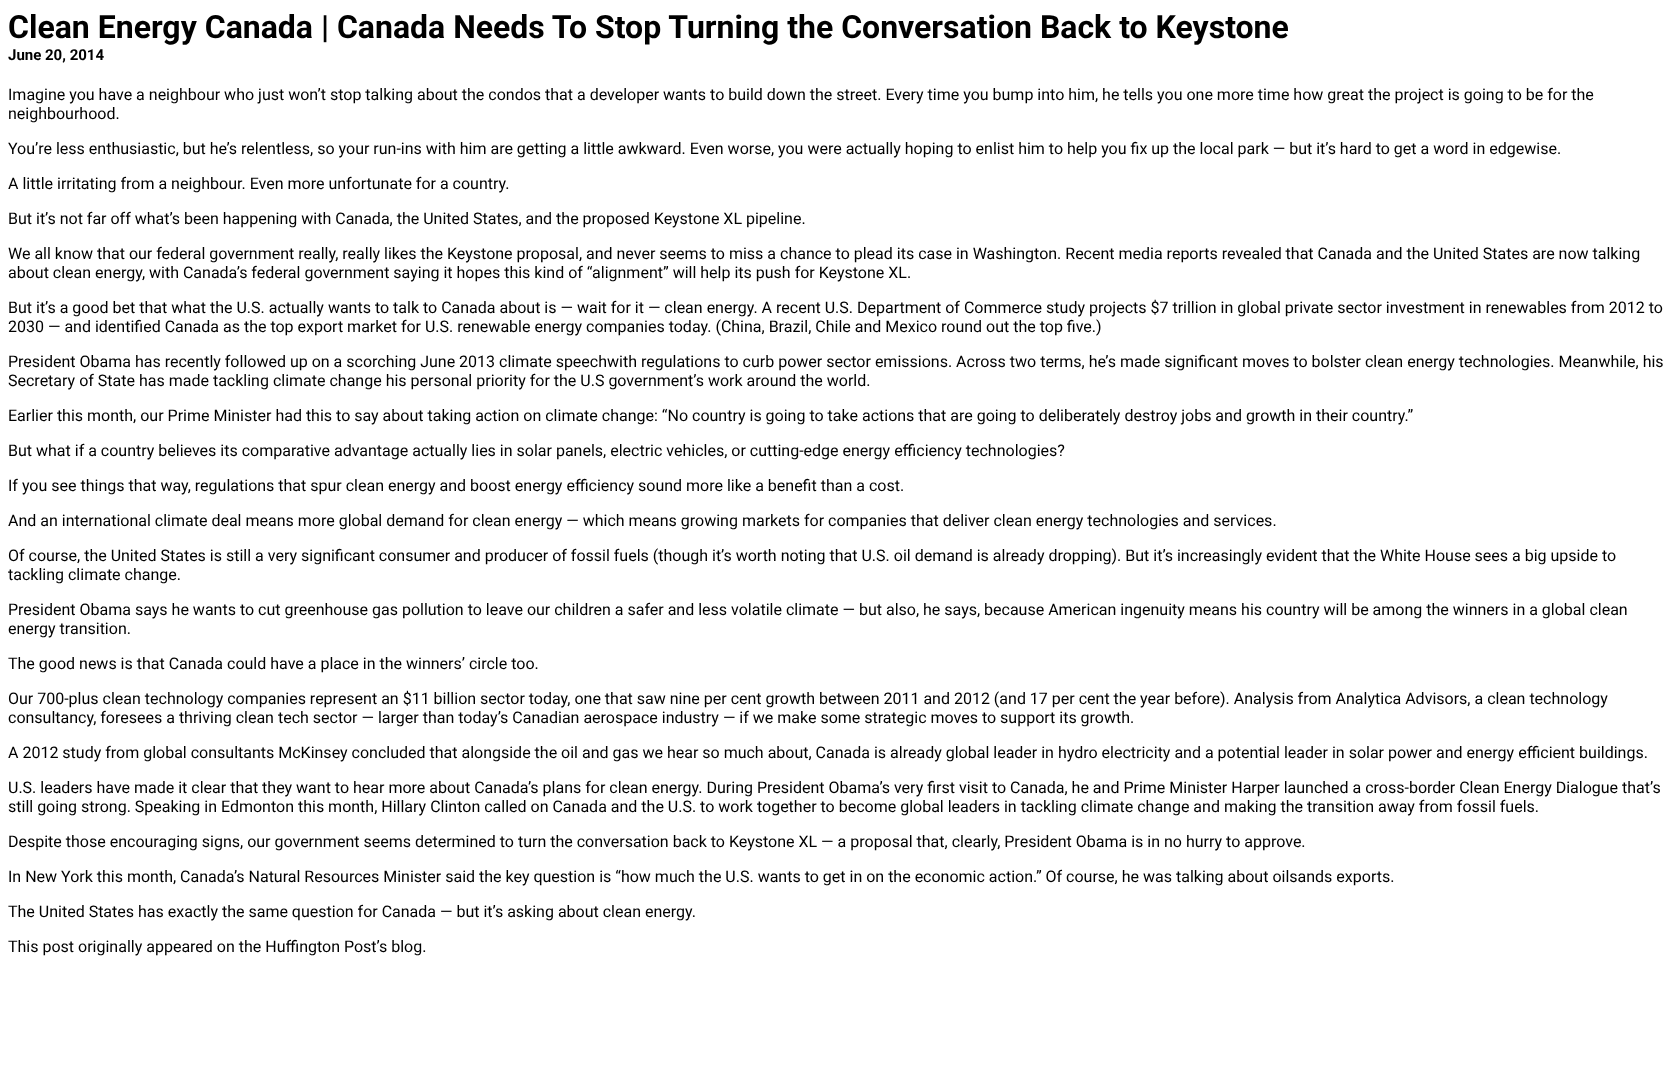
<svg xmlns="http://www.w3.org/2000/svg" width="1674" height="1084">
<style>
.a{font:bold 32px Roboto;fill:#000}
.b{font:bold 15px Roboto;fill:#000}
.c{font:16px Roboto;fill:#000}
</style>
<rect width="100%" height="100%" fill="#fff"/>
<text class="a" x="8" y="38">Clean Energy Canada | Canada Needs To Stop Turning the Conversation Back to Keystone</text>
<text class="b" x="8" y="60">June 20, 2014</text>
<text class="c" x="8" y="100">Imagine you have a neighbour who just won’t stop talking about the condos that a developer wants to build down the street. Every time you bump into him, he tells you one more time how great the project is going to be for the</text>
<text class="c" x="8" y="119">neighbourhood.</text>
<text class="c" x="8" y="154">You’re less enthusiastic, but he’s relentless, so your run-ins with him are getting a little awkward. Even worse, you were actually hoping to enlist him to help you fix up the local park — but it’s hard to get a word in edgewise.</text>
<text class="c" x="8" y="189">A little irritating from a neighbour. Even more unfortunate for a country.</text>
<text class="c" x="8" y="224">But it’s not far off what’s been happening with Canada, the United States, and the proposed Keystone XL pipeline.</text>
<text class="c" x="8" y="259">We all know that our federal government really, really likes the Keystone proposal, and never seems to miss a chance to plead its case in Washington. Recent media reports revealed that Canada and the United States are now talking</text>
<text class="c" x="8" y="278">about clean energy, with Canada’s federal government saying it hopes this kind of “alignment” will help its push for Keystone XL.</text>
<text class="c" x="8" y="313">But it’s a good bet that what the U.S. actually wants to talk to Canada about is — wait for it — clean energy. A recent U.S. Department of Commerce study projects $7 trillion in global private sector investment in renewables from 2012 to</text>
<text class="c" x="8" y="332">2030 — and identified Canada as the top export market for U.S. renewable energy companies today. (China, Brazil, Chile and Mexico round out the top five.)</text>
<text class="c" x="8" y="367">President Obama has recently followed up on a scorching June 2013 climate speechwith regulations to curb power sector emissions. Across two terms, he’s made significant moves to bolster clean energy technologies. Meanwhile, his</text>
<text class="c" x="8" y="386">Secretary of State has made tackling climate change his personal priority for the U.S government’s work around the world.</text>
<text class="c" x="8" y="421">Earlier this month, our Prime Minister had this to say about taking action on climate change: “No country is going to take actions that are going to deliberately destroy jobs and growth in their country.”</text>
<text class="c" x="8" y="456">But what if a country believes its comparative advantage actually lies in solar panels, electric vehicles, or cutting-edge energy efficiency technologies?</text>
<text class="c" x="8" y="491">If you see things that way, regulations that spur clean energy and boost energy efficiency sound more like a benefit than a cost.</text>
<text class="c" x="8" y="526">And an international climate deal means more global demand for clean energy — which means growing markets for companies that deliver clean energy technologies and services.</text>
<text class="c" x="8" y="561">Of course, the United States is still a very significant consumer and producer of fossil fuels (though it’s worth noting that U.S. oil demand is already dropping). But it’s increasingly evident that the White House sees a big upside to</text>
<text class="c" x="8" y="580">tackling climate change.</text>
<text class="c" x="8" y="615">President Obama says he wants to cut greenhouse gas pollution to leave our children a safer and less volatile climate — but also, he says, because American ingenuity means his country will be among the winners in a global clean</text>
<text class="c" x="8" y="634">energy transition.</text>
<text class="c" x="8" y="669">The good news is that Canada could have a place in the winners’ circle too.</text>
<text class="c" x="8" y="704">Our 700-plus clean technology companies represent an $11 billion sector today, one that saw nine per cent growth between 2011 and 2012 (and 17 per cent the year before). Analysis from Analytica Advisors, a clean technology</text>
<text class="c" x="8" y="723">consultancy, foresees a thriving clean tech sector — larger than today’s Canadian aerospace industry — if we make some strategic moves to support its growth.</text>
<text class="c" x="8" y="758">A 2012 study from global consultants McKinsey concluded that alongside the oil and gas we hear so much about, Canada is already global leader in hydro electricity and a potential leader in solar power and energy efficient buildings.</text>
<text class="c" x="8" y="793">U.S. leaders have made it clear that they want to hear more about Canada’s plans for clean energy. During President Obama’s very first visit to Canada, he and Prime Minister Harper launched a cross-border Clean Energy Dialogue that’s</text>
<text class="c" x="8" y="812">still going strong. Speaking in Edmonton this month, Hillary Clinton called on Canada and the U.S. to work together to become global leaders in tackling climate change and making the transition away from fossil fuels.</text>
<text class="c" x="8" y="847">Despite those encouraging signs, our government seems determined to turn the conversation back to Keystone XL — a proposal that, clearly, President Obama is in no hurry to approve.</text>
<text class="c" x="8" y="882">In New York this month, Canada’s Natural Resources Minister said the key question is “how much the U.S. wants to get in on the economic action.” Of course, he was talking about oilsands exports.</text>
<text class="c" x="8" y="917">The United States has exactly the same question for Canada — but it’s asking about clean energy.</text>
<text class="c" x="8" y="952">This post originally appeared on the Huffington Post’s blog.</text>
</svg>
